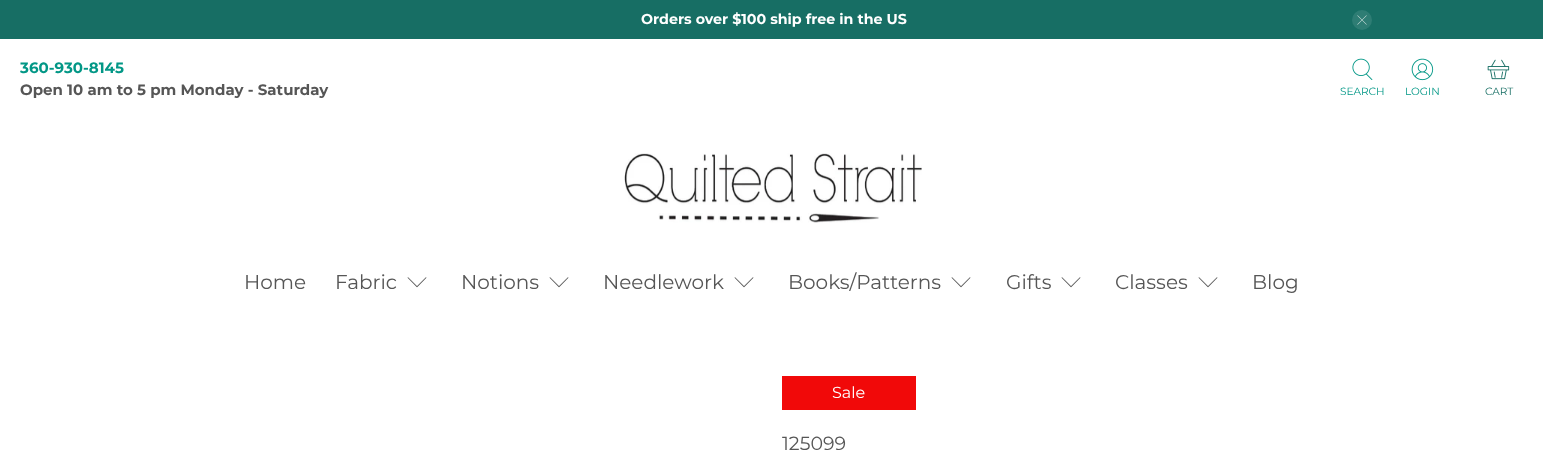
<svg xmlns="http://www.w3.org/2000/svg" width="1543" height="453">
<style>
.a{font:bold 14.25px Montserrat;fill:#fff}
.b{font:bold 15px Montserrat;fill:#029786}
.c{font:bold 15px Montserrat;fill:#565656}
.d{font:10.5px Montserrat;fill:#029786}
.e{font:10.5px Montserrat;fill:#176e64}
.f{font:20px Montserrat;fill:#565656}
.g{font:16px Montserrat;fill:#fff}
.h{font:19px Montserrat;fill:#565656}
</style>
<rect width="100%" height="100%" fill="#fff"/>
<path fill="#176e64" d="M0 0h1543v39H0z"/>
<circle fill="#2e7d74" cx="1362" cy="20" r="10"/>
<image href="1.png" x="1357" y="15" width="10" height="10"/>
<image href="2.png" x="1352" y="58" width="21" height="22"/>
<image href="3.png" x="1411" y="58" width="23" height="23"/>
<image href="4.png" x="1487" y="59" width="23" height="21"/>
<image href="5.png" x="624" y="153" width="298" height="70"/>
<image href="6.png" x="407" y="277" width="20" height="11"/>
<image href="6.png" x="549" y="277" width="20" height="11"/>
<image href="6.png" x="734" y="277" width="20" height="11"/>
<image href="6.png" x="951" y="277" width="20" height="11"/>
<image href="6.png" x="1061" y="277" width="20" height="11"/>
<image href="6.png" x="1198" y="277" width="20" height="11"/>
<path fill="#f10909" d="M782 376h134v34H782z"/>
<text class="a" x="641" y="24">Orders over $100 ship free in the US</text>
<text class="b" x="20" y="73">360-930-8145</text>
<text class="c" x="20" y="95">Open 10 am to 5 pm Monday - Saturday</text>
<text class="d" x="1340" y="95">SEARCH</text>
<text class="d" x="1405" y="95">LOGIN</text>
<text class="e" x="1485" y="95">CART</text>
<text class="f" x="244" y="289">Home</text>
<text class="f" x="335" y="289">Fabric</text>
<text class="f" x="461" y="289">Notions</text>
<text class="f" x="603" y="289">Needlework</text>
<text class="f" x="788" y="289">Books/Patterns</text>
<text class="f" x="1006" y="289">Gifts</text>
<text class="f" x="1115" y="289">Classes</text>
<text class="f" x="1252" y="289">Blog</text>
<text class="g" x="832" y="398">Sale</text>
<text class="h" x="782" y="450">125099</text>
</svg>
